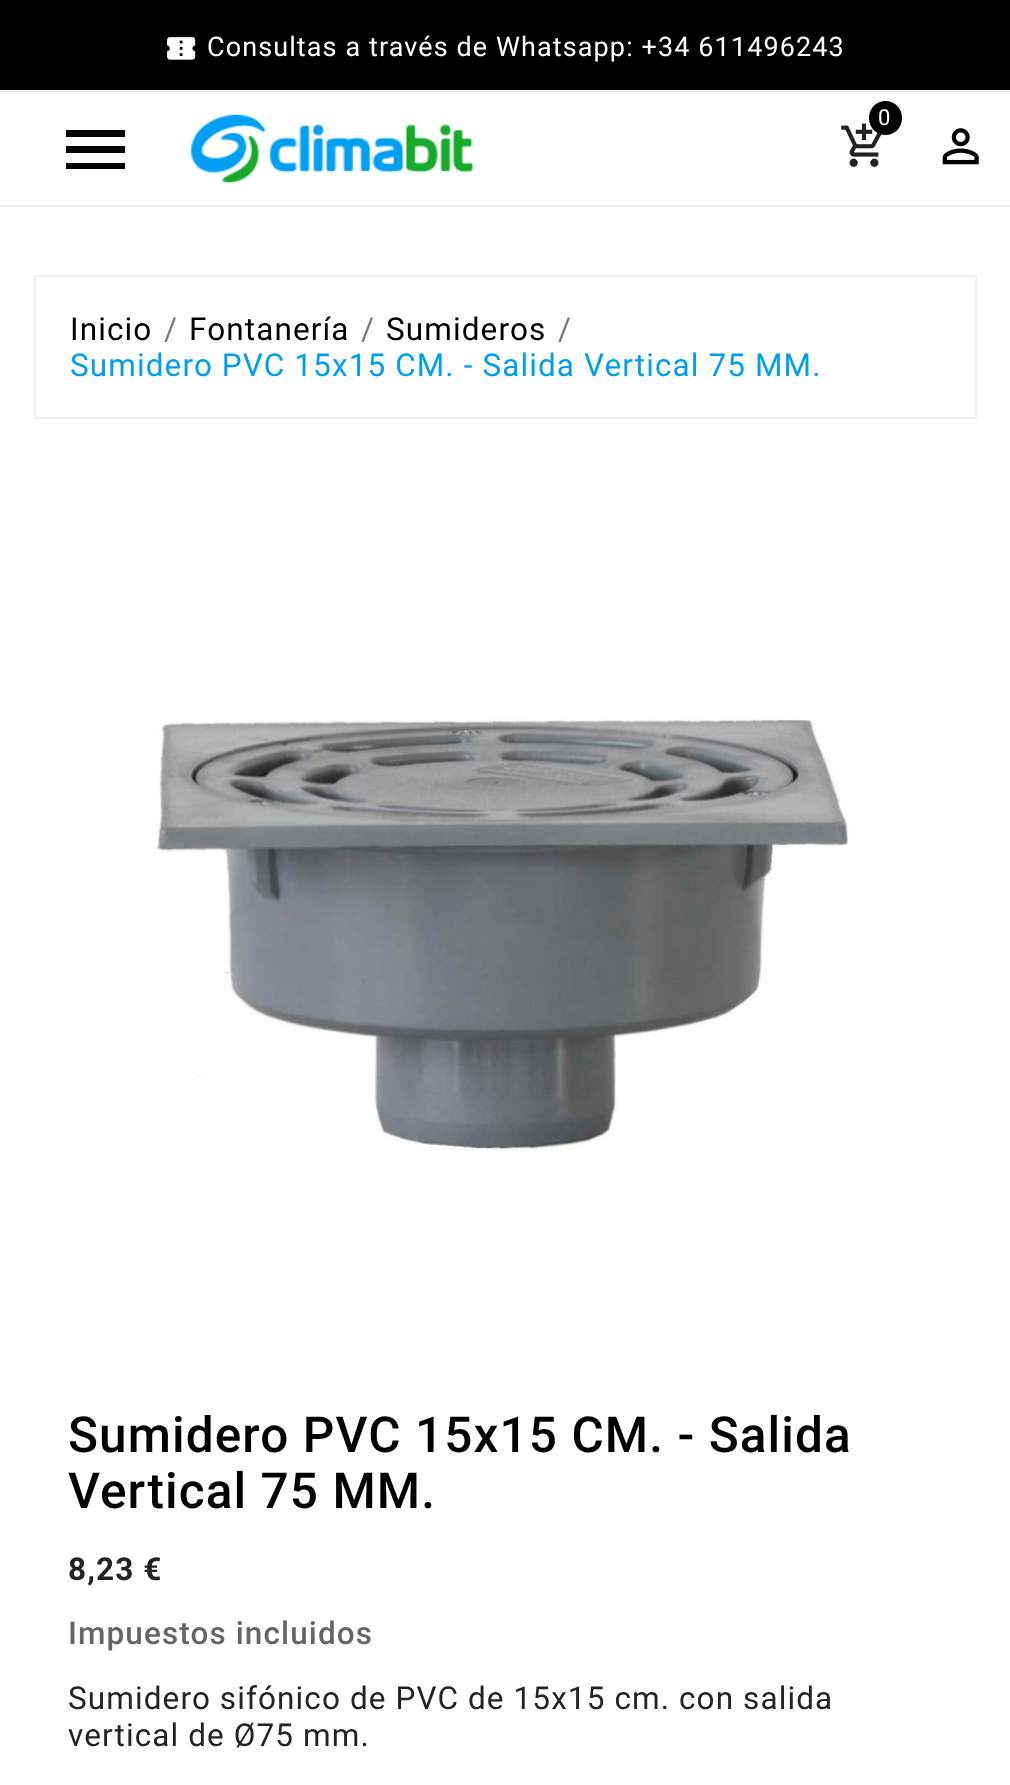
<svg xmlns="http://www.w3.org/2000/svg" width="1010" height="1785">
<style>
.a{font:27px Roboto;letter-spacing:1.1px;fill:#fff}
.b{font:22px Roboto;letter-spacing:1.1px;fill:#fff}
.c{font:31.5px Roboto;letter-spacing:1.1px;fill:#000}
.d{font:31.5px Roboto;letter-spacing:1.1px;fill:#7a7a7a}
.e{font:31.5px Roboto;letter-spacing:1.1px;fill:#009ff2}
.f{font:500 49.5px Roboto;letter-spacing:1.1px;fill:#000}
.g{font:bold 31.5px Roboto;letter-spacing:1.1px;fill:#232323}
.h{font:500 31.5px Roboto;letter-spacing:1.1px;fill:#666}
.i{font:31.5px Roboto;letter-spacing:1.1px;fill:#232323}
</style>
<rect width="100%" height="100%" fill="#fff"/>
<path fill="#000" d="M0 0h1010v90H0z"/>
<path fill="#eee" d="M0 90h1010v2H0z"/>
<image href="1.png" x="167" y="37" width="29" height="23"/>
<path fill="#eee" d="M0 205h1010v2H0z"/>
<path fill="#000" d="M66 130h59v7h-59zm0 23v-7h59v7zm0 16v-6h59v6z"/>
<image href="2.png" x="191" y="114" width="282" height="69"/>
<image href="3.png" x="841" y="123" width="41" height="44"/>
<rect fill="#000" x="869" y="101" width="33" height="34" rx="16.5"/>
<image href="4.png" x="942" y="128" width="37" height="37"/>
<path fill="none" stroke="#eee" stroke-width="2" d="M35 276h941v142H35z"/>
<image href="5.png" x="155" y="715" width="700" height="436"/>
<text class="a" x="207" y="56">Consultas a través de Whatsapp: +34 611496243</text>
<text class="b" x="878" y="125">0</text>
<text class="c" x="70" y="340">Inicio</text>
<text class="d" x="164" y="340">/</text>
<text class="c" x="189" y="340">Fontanería</text>
<text class="d" x="361" y="340">/</text>
<text class="c" x="386" y="340">Sumideros</text>
<text class="d" x="558" y="340">/</text>
<text class="e" x="70" y="376">Sumidero PVC 15x15 CM. - Salida Vertical 75 MM.</text>
<text class="f" x="68" y="1452">Sumidero PVC 15x15 CM. - Salida</text>
<text class="f" x="68" y="1508">Vertical 75 MM.</text>
<text class="g" x="68" y="1580">8,23 €</text>
<text class="h" x="68" y="1644">Impuestos incluidos</text>
<text class="i" x="68" y="1709">Sumidero sifónico de PVC de 15x15 cm. con salida</text>
<text class="i" x="68" y="1746">vertical de Ø75 mm.</text>
</svg>
